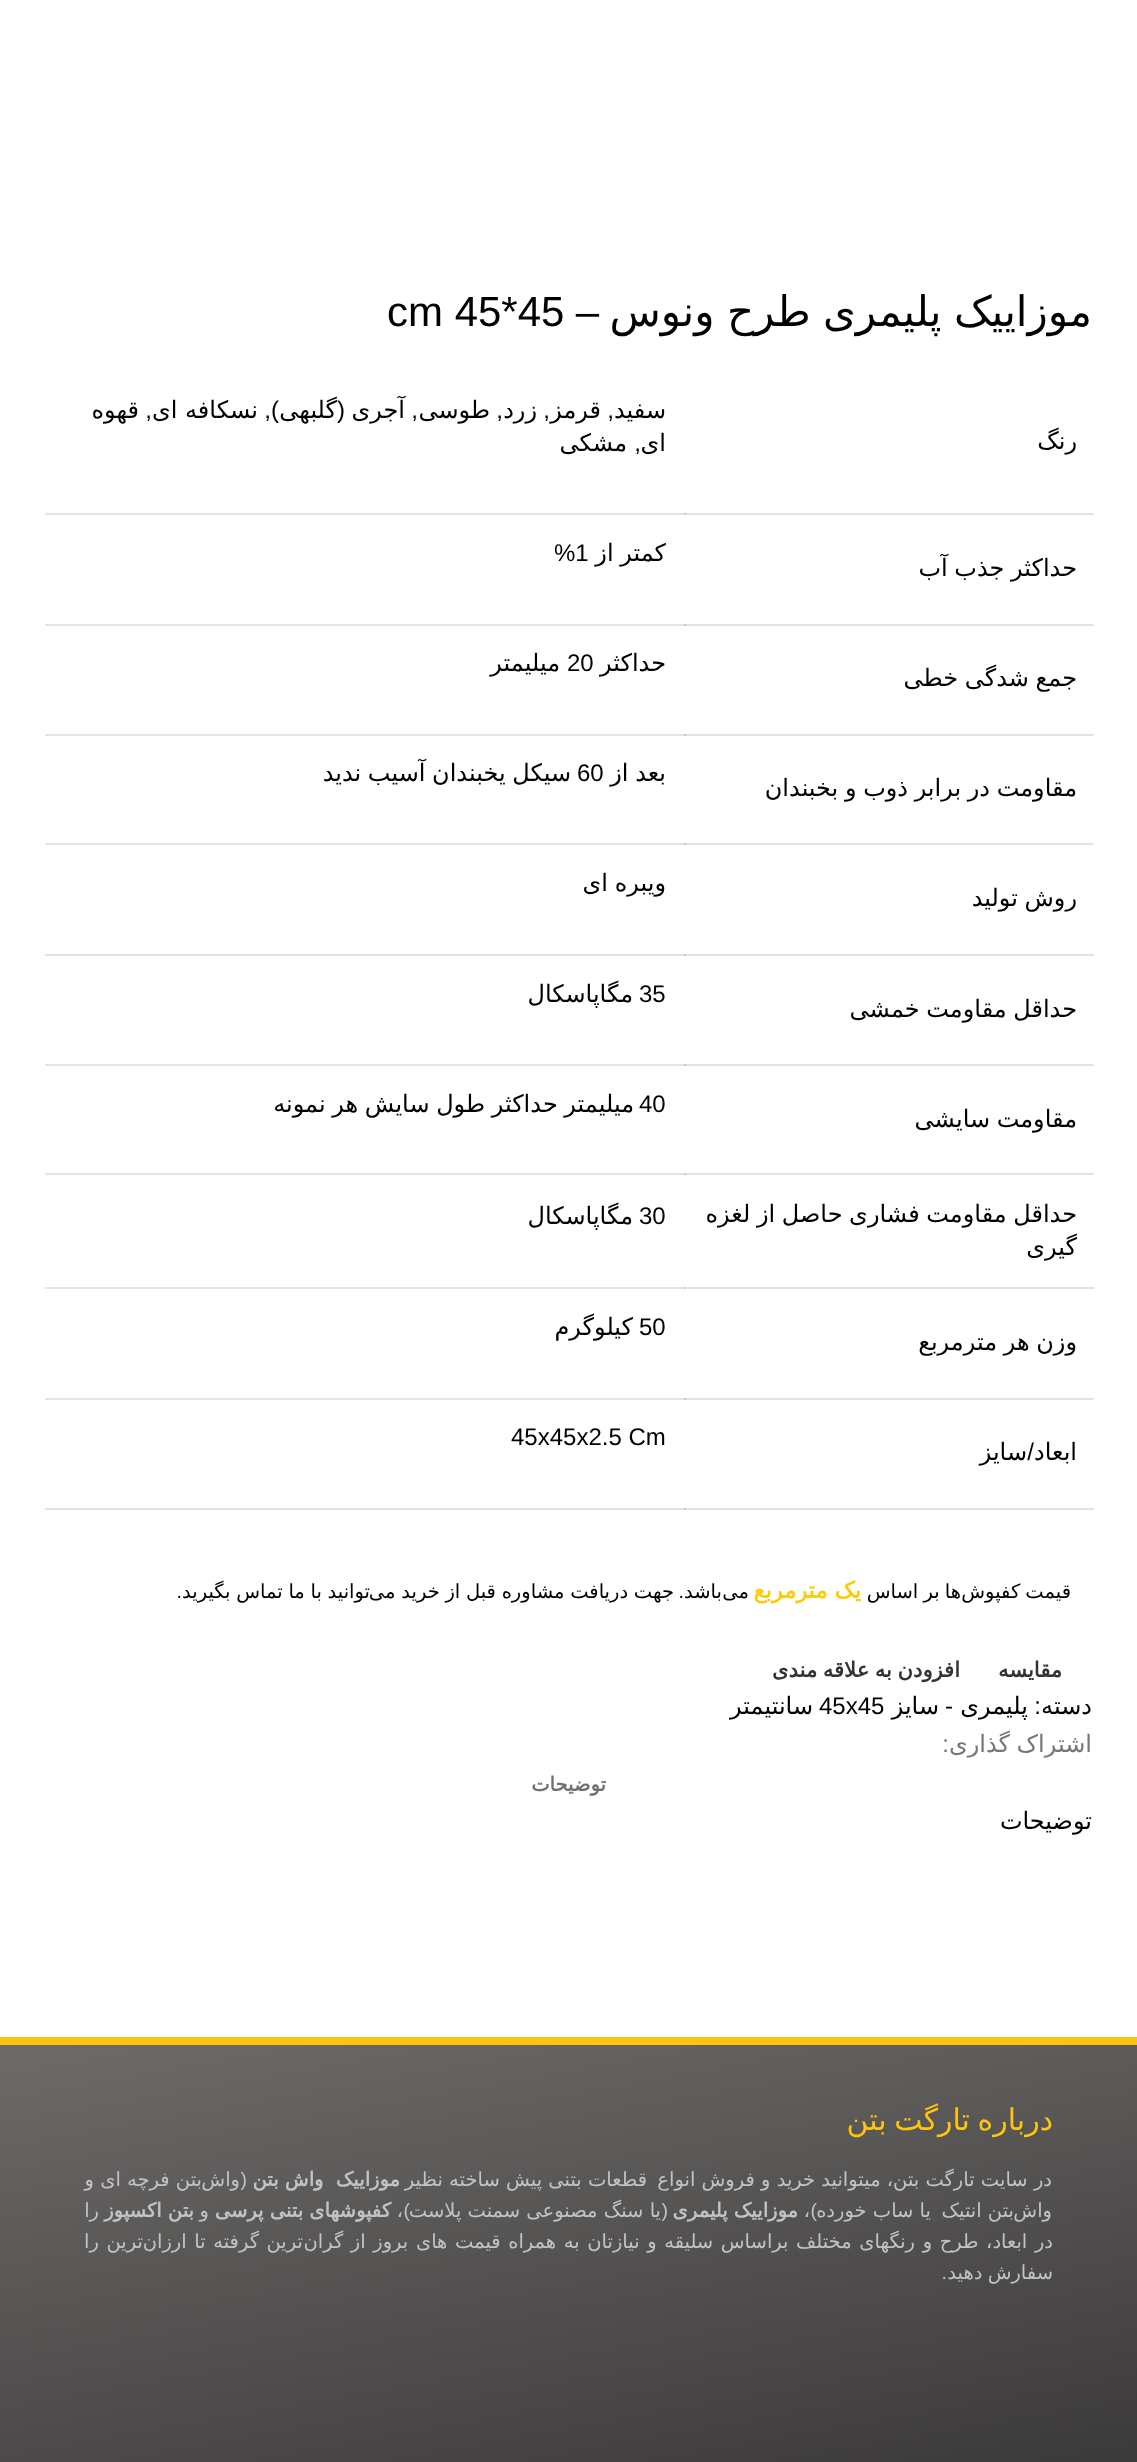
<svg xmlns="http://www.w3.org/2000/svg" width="1137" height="2462">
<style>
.a{font:42px DejaVu Sans;direction:rtl;fill:#000}
.b{font:42px Liberation Sans;direction:rtl;fill:#000}
.c{font:42px Liberation Sans;fill:#000}
.d{font:24px DejaVu Sans;direction:rtl;fill:#000}
.e{font:24px Liberation Sans;direction:rtl;fill:#000}
.f{font:24px Liberation Sans;fill:#000}
.g{font:19.5px DejaVu Sans;direction:rtl;fill:#000}
.h{font:bold 22.5px DejaVu Sans;direction:rtl;fill:#fccc0a}
.i{font:19.5px Liberation Sans;direction:rtl;fill:#000}
.j{font:bold 21px DejaVu Sans;direction:rtl;fill:#333}
.k{font:24px DejaVu Sans;direction:rtl;fill:#777}
.l{font:24px Liberation Sans;direction:rtl;fill:#777}
.m{font:bold 19.5px DejaVu Sans;direction:rtl;fill:#707070}
.n{font:30px DejaVu Sans;direction:rtl;fill:#ffc40e}
.o{font:19.5px DejaVu Sans;direction:rtl;fill:#c3c3c3}
.p{font:bold 19.5px DejaVu Sans;direction:rtl;fill:#c3c3c3}
.q{font:19.5px Liberation Sans;direction:rtl;fill:#c3c3c3}
</style>
<defs>
<linearGradient id="g1" gradientUnits="userSpaceOnUse" x1="482" y1="1960" x2="655" y2="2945"><stop offset="0" stop-color="#6e6a6a"/><stop offset="1" stop-color="#1a1a1a"/></linearGradient>
</defs>
<rect width="100%" height="100%" fill="#fff"/>
<path fill="#e3e3e3" d="M684 513h410v2H684z"/>
<path fill="#e3e3e3" d="M684 624h410v2H684z"/>
<path fill="#e3e3e3" d="M684 734h410v2H684z"/>
<path fill="#e3e3e3" d="M684 843h410v2H684z"/>
<path fill="#e3e3e3" d="M684 954h410v2H684z"/>
<path fill="#e3e3e3" d="M684 1064h410v2H684z"/>
<path fill="#e3e3e3" d="M684 1173h410v2H684z"/>
<path fill="#e3e3e3" d="M684 1287h410v2H684z"/>
<path fill="#e3e3e3" d="M684 1398h410v2H684z"/>
<path fill="#e3e3e3" d="M684 1508h410v2H684z"/>
<path fill="#e4e4e4" d="M45 513h641v2H45z"/>
<path fill="#cbcbcb" d="M684 513h2v2H684z"/>
<path fill="#e4e4e4" d="M45 624h641v2H45z"/>
<path fill="#cbcbcb" d="M684 624h2v2H684z"/>
<path fill="#e4e4e4" d="M45 734h641v2H45z"/>
<path fill="#cbcbcb" d="M684 734h2v2H684z"/>
<path fill="#e4e4e4" d="M45 843h641v2H45z"/>
<path fill="#cbcbcb" d="M684 843h2v2H684z"/>
<path fill="#e4e4e4" d="M45 954h641v2H45z"/>
<path fill="#cbcbcb" d="M684 954h2v2H684z"/>
<path fill="#e4e4e4" d="M45 1064h641v2H45z"/>
<path fill="#cbcbcb" d="M684 1064h2v2H684z"/>
<path fill="#e4e4e4" d="M45 1173h641v2H45z"/>
<path fill="#cbcbcb" d="M684 1173h2v2H684z"/>
<path fill="#e4e4e4" d="M45 1287h641v2H45z"/>
<path fill="#cbcbcb" d="M684 1287h2v2H684z"/>
<path fill="#e4e4e4" d="M45 1398h641v2H45z"/>
<path fill="#cbcbcb" d="M684 1398h2v2H684z"/>
<path fill="#e4e4e4" d="M45 1508h641v2H45z"/>
<path fill="#cbcbcb" d="M684 1508h2v2H684z"/>
<path fill="url(#g1)" d="M0 2045h1137v417H0z"/>
<path fill="#ffc40e" d="M0 2037h1137v8H0z"/>
<text class="a" x="1092" y="326" word-spacing="-1">موزاییک پلیمری طرح ونوس</text>
<text class="b" x="599" y="326">–</text>
<text class="c" x="387" y="326">cm 45*45</text>
<text class="d" x="1077" y="449">رنگ</text>
<text class="d" x="666" y="418">سفید</text>
<text class="e" x="614" y="418">,</text>
<text class="d" x="601" y="418">قرمز</text>
<text class="e" x="550" y="418">,</text>
<text class="d" x="537" y="418">زرد</text>
<text class="e" x="503" y="418">,</text>
<text class="d" x="490" y="418">طوسی</text>
<text class="e" x="418" y="418">,</text>
<text class="d" x="405" y="418">آجری</text>
<text class="e" x="345" y="418">(</text>
<text class="d" x="337" y="418">گلبهی</text>
<text class="e" x="279" y="418">),</text>
<text class="d" x="258" y="418">نسکافه ای</text>
<text class="e" x="152" y="418">,</text>
<text class="d" x="139" y="418">قهوه</text>
<text class="d" x="666" y="451">ای</text>
<text class="e" x="641" y="451">,</text>
<text class="d" x="627" y="451">مشکی</text>
<text class="d" x="1077" y="576" word-spacing="-1">حداکثر جذب آب</text>
<text class="d" x="666" y="561" word-spacing="-1">کمتر از</text>
<text class="f" x="554" y="561">%1</text>
<text class="d" x="1077" y="686" word-spacing="-1">جمع شدگی خطی</text>
<text class="d" x="666" y="671">حداکثر</text>
<text class="f" x="567" y="671">20</text>
<text class="d" x="560" y="671">میلیمتر</text>
<text class="d" x="666" y="781" word-spacing="-1">بعد از</text>
<text class="f" x="577" y="781">60</text>
<text class="d" x="571" y="781" word-spacing="-1">سیکل یخبندان آسیب ندید</text>
<text class="d" x="1077" y="796" word-spacing="-1">مقاومت در برابر ذوب و بخبندان</text>
<text class="d" x="666" y="891" word-spacing="-1">ویبره ای</text>
<text class="d" x="1077" y="906" word-spacing="-1">روش تولید</text>
<text class="f" x="639" y="1002">35</text>
<text class="d" x="633" y="1002">مگاپاسکال</text>
<text class="d" x="1077" y="1017" word-spacing="-1">حداقل مقاومت خمشی</text>
<text class="f" x="639" y="1112">40</text>
<text class="d" x="634" y="1112" word-spacing="-1">میلیمتر حداکثر طول سایش هر نمونه</text>
<text class="d" x="1077" y="1127" word-spacing="-1">مقاومت سایشی</text>
<text class="d" x="1077" y="1222" word-spacing="-1">حداقل مقاومت فشاری حاصل از لغزه</text>
<text class="d" x="1077" y="1255">گیری</text>
<text class="f" x="639" y="1224">30</text>
<text class="d" x="633" y="1224">مگاپاسکال</text>
<text class="f" x="639" y="1335">50</text>
<text class="d" x="633" y="1335">کیلوگرم</text>
<text class="d" x="1077" y="1350" word-spacing="-1">وزن هر مترمربع</text>
<text class="f" x="511" y="1445">45x45x2.5 Cm</text>
<text class="d" x="1077" y="1460">ابعاد</text>
<text class="e" x="1034" y="1460">/</text>
<text class="d" x="1027" y="1460">سایز</text>
<text class="g" x="1071" y="1598" word-spacing="-1">قیمت کفپوش</text>
<text class="g" x="961" y="1598" word-spacing="-1">ها بر اساس</text>
<text class="h" x="861" y="1598">یک مترمربع</text>
<text class="g" x="749" y="1598">می</text>
<text class="g" x="722" y="1598">باشد</text>
<text class="i" x="684" y="1598">.</text>
<text class="g" x="370" y="1598" word-spacing="-0.5">توانید با ما تماس بگیرید</text>
<text class="g" x="674" y="1598" word-spacing="-0.5">جهت دریافت مشاوره قبل از خرید می</text>
<text class="i" x="182" y="1598">.</text>
<text class="j" x="1062" y="1677">مقایسه</text>
<text class="j" x="960" y="1677" word-spacing="-1">افزودن به علاقه مندی</text>
<text class="d" x="1092" y="1714">دسته</text>
<text class="e" x="1041" y="1714">:</text>
<text class="d" x="1028" y="1714">پلیمری</text>
<text class="e" x="953" y="1714">-</text>
<text class="d" x="939" y="1714">سایز</text>
<text class="f" x="819" y="1714">45x45</text>
<text class="d" x="813" y="1714">سانتیمتر</text>
<text class="k" x="1092" y="1752" word-spacing="-1">اشتراک گذاری</text>
<text class="l" x="949" y="1752">:</text>
<text class="m" x="606" y="1791">توضیحات</text>
<text class="d" x="1092" y="1829">توضیحات</text>
<text class="n" x="1053" y="2130" word-spacing="-2">درباره تارگت بتن</text>
<text class="o" x="1052" y="2186">در سایت تارگت بتن، میتوانید خرید و فروش انواع</text>
<text class="o" x="647" y="2186">قطعات بتنی پیش ساخته نظیر</text>
<text class="p" xml:space="preserve" x="400" y="2186">موزاییک  واش بتن</text>
<text class="q" x="247" y="2186">(</text>
<text class="o" x="240" y="2186">واش</text>
<text class="o" x="202" y="2186">بتن فرچه ای و</text>
<text class="o" x="1052" y="2217">واش</text>
<text class="o" x="1014" y="2217">بتن انتیک</text>
<text class="o" x="931" y="2217">یا ساب خورده</text>
<text class="q" x="817" y="2217">)</text>
<text class="o" x="810" y="2217">،</text>
<text class="p" x="798" y="2217">موزاییک پلیمری</text>
<text class="q" x="668" y="2217">(</text>
<text class="o" x="661" y="2217">یا سنگ مصنوعی سمنت پلاست</text>
<text class="q" x="410" y="2217">)</text>
<text class="o" x="403" y="2217">،</text>
<text class="p" x="391" y="2217">کفپوشهای بتنی پرسی</text>
<text class="o" x="209" y="2217">و</text>
<text class="p" x="194" y="2217">بتن اکسپوز</text>
<text class="o" x="99" y="2217">را</text>
<text class="o" x="1053" y="2248" word-spacing="1.4">در ابعاد، طرح و رنگهای مختلف براساس سلیقه و نیازتان به همراه قیمت های بروز از گران</text>
<text class="o" x="303" y="2248" word-spacing="1.4">ترین گرفته تا ارزان</text>
<text class="o" x="143" y="2248" word-spacing="1.4">ترین را</text>
<text class="o" x="1053" y="2279" word-spacing="-1">سفارش دهید</text>
<text class="q" x="947" y="2279">.</text>
</svg>
